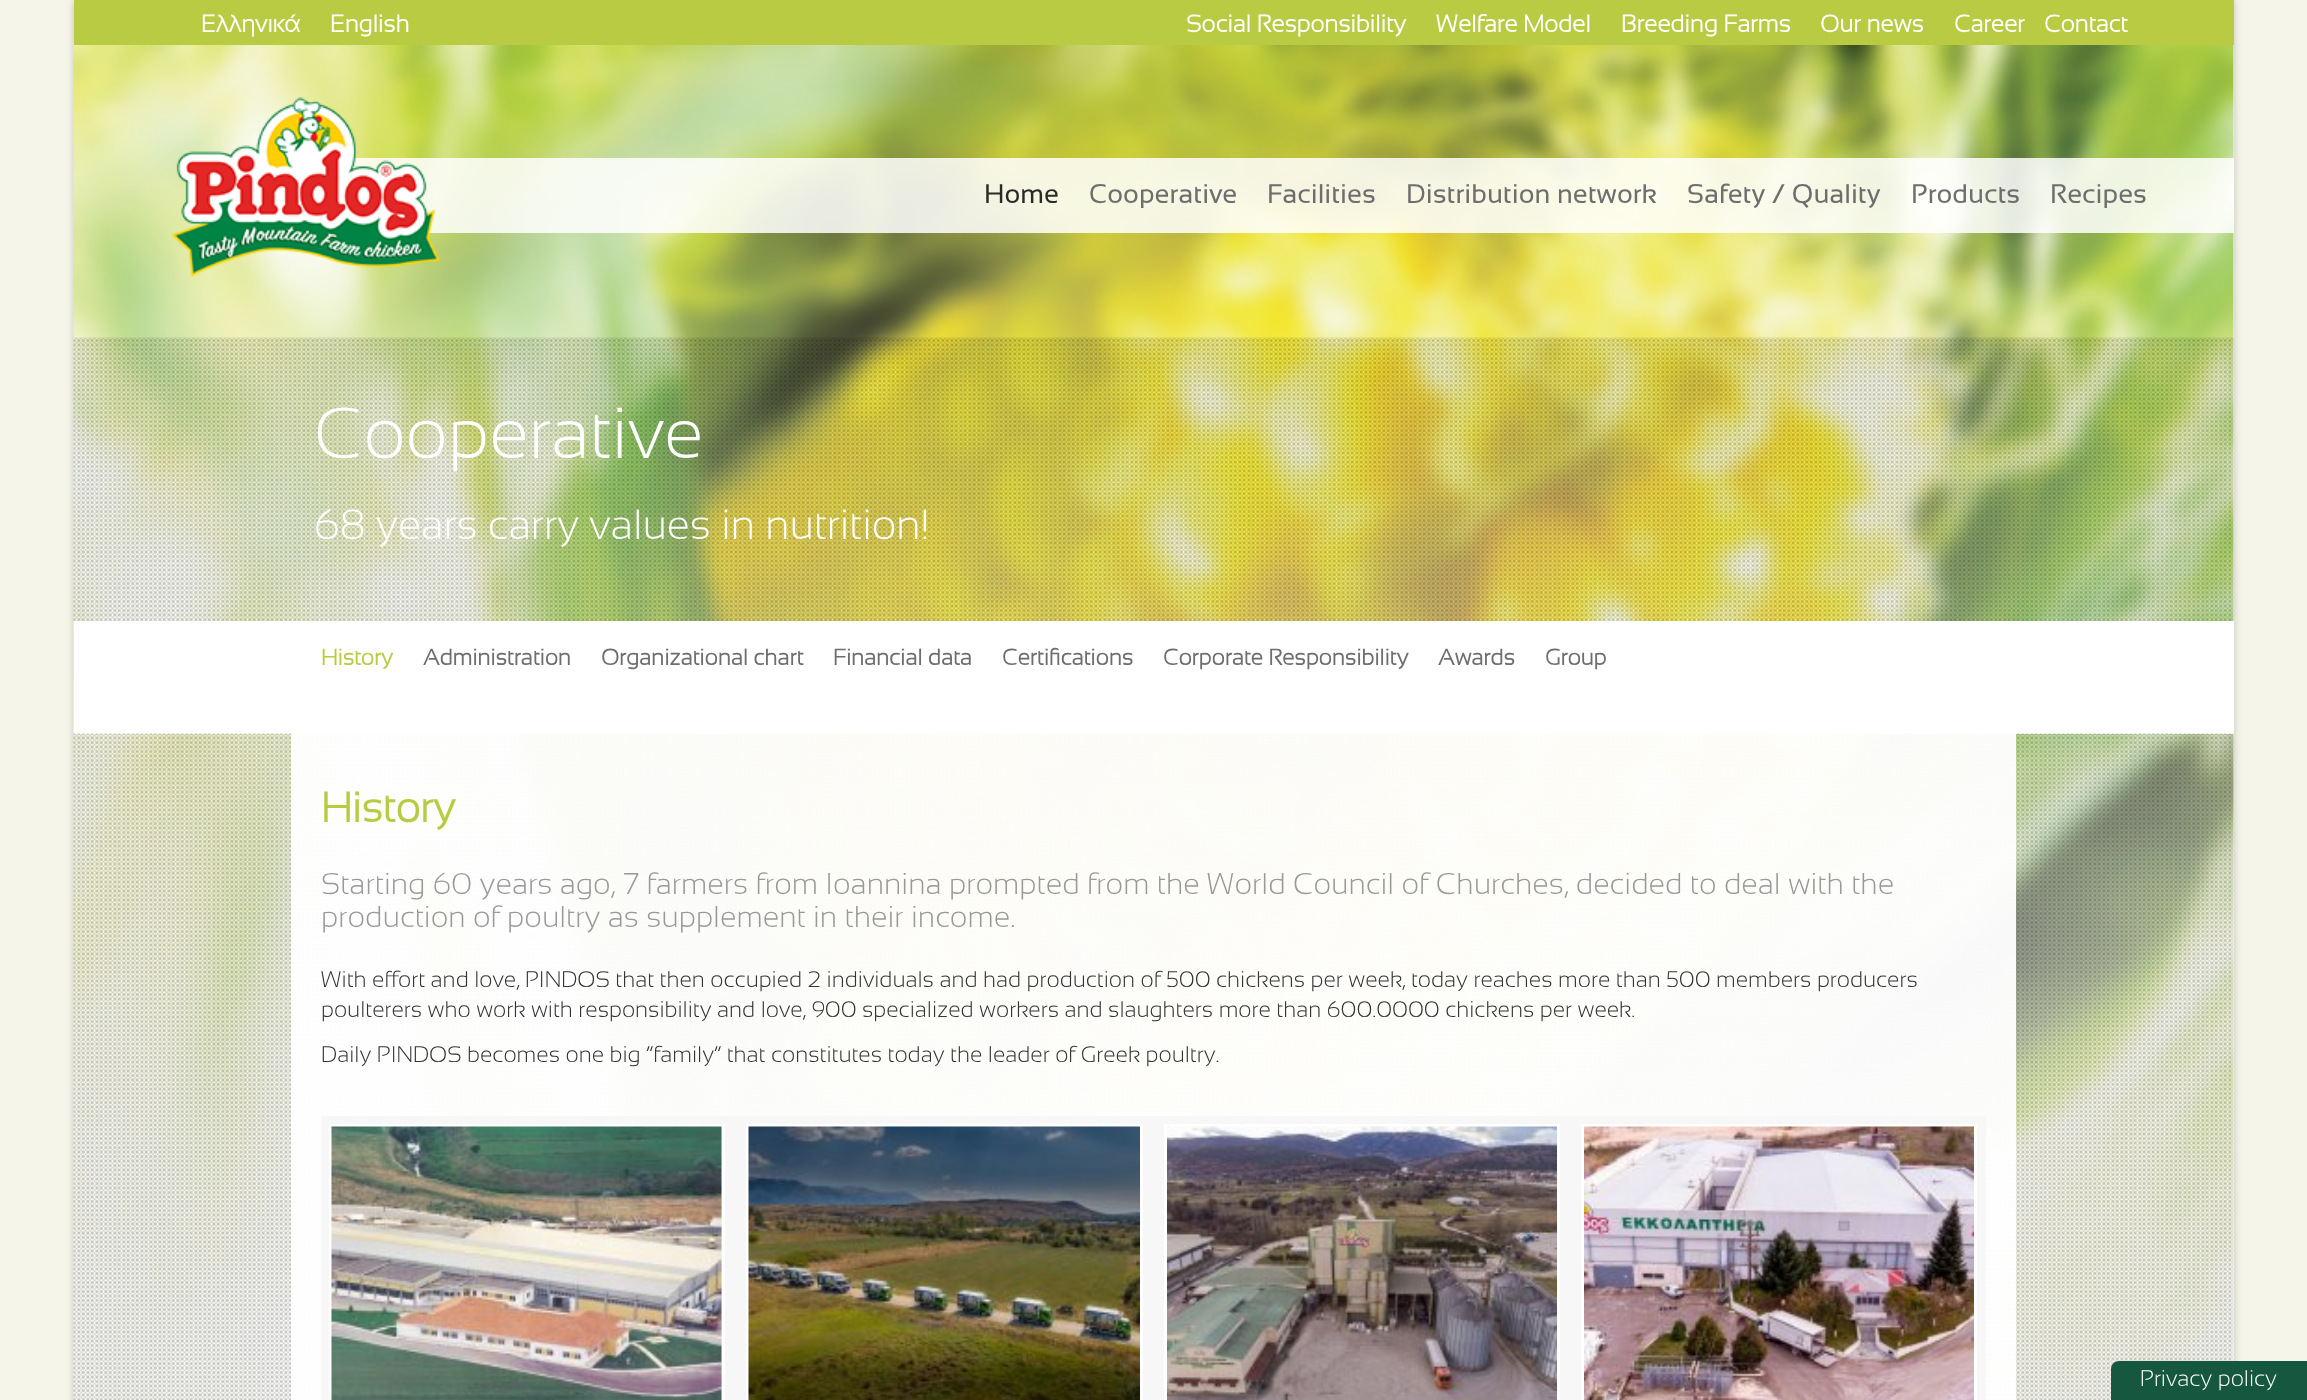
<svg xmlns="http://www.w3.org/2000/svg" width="2307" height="1400">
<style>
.a{font:bold 24px Sansation Light;fill:#fff}
.b{font:27px Sansation;fill:#2b2a29}
.c{font:27px Sansation;fill:#6e6e6e}
.d{font:300 72px Sansation Light;fill:#fff}
.e{font:300 42px Sansation Light;fill:#fff}
.f{font:bold 22.5px Sansation Light;fill:#b8cb43}
.g{font:bold 22.5px Sansation Light;fill:#6e6e6e}
.h{font:bold 42px Sansation Light;fill:#b8cb43}
.i{font:300 30px Sansation Light;fill:#999}
.j{font:300 22.5px Sansation Light;fill:#333}
.k{font:300 22.5px Sansation Light;fill:#fff}
</style>
<rect width="100%" height="100%" fill="#f5f5e9"/>
<path fill="#00000033" filter="blur(4px)" d="M74 0h2160v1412H74z"/>
<path fill="#b8cb43" d="M74 0h2160v45H74z"/>
<path fill="#fff" d="M2233 45h1v1316H2233z"/>
<image href="2.png" x="73" y="45" width="2161" height="1355"/>
<path fill="#ffffffd9" d="M351 158h1883v75H351z"/>
<image href="1.png" x="171" y="97" width="271" height="181"/>
<image href="3.png" x="73" y="337" width="2161" height="284"/>
<path fill="#fff" d="M74 621h2160v113H74z"/>
<image href="4.png" x="73" y="733" width="2161" height="667"/>
<path fill="#fffffff2" d="M291 733h1725v667H291z"/>
<path fill="#f7f7f7" d="M321 1116h1665v284H321z"/>
<path fill="none" stroke="#fff" stroke-width="3" d="M330.5 1125.5h393v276H330.5z"/>
<path fill="none" stroke="#fff" stroke-width="3" d="M747.5 1125.5h394v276H747.5z"/>
<path fill="none" stroke="#fff" stroke-width="3" d="M1165.5 1125.5h393v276H1165.5z"/>
<path fill="none" stroke="#fff" stroke-width="3" d="M1582.5 1125.5h393v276H1582.5z"/>
<image href="5.png" x="331" y="1126" width="391" height="274"/>
<image href="6.png" x="748" y="1126" width="392" height="274"/>
<image href="7.png" x="1167" y="1126" width="390" height="274"/>
<image href="8.png" x="1584" y="1126" width="390" height="274"/>
<path fill="#16573f" stroke="#16573f" stroke-width="2" d="M2119 1362h187v38h-194v-31c0-4 3-7 7-7z"/>
<text class="a" x="201" y="32">Ελληνικά</text>
<text class="a" x="330" y="32">English</text>
<text class="a" x="1186" y="32">Social Responsibility</text>
<text class="a" x="1436" y="32">Welfare Model</text>
<text class="a" x="1621" y="32">Breeding Farms</text>
<text class="a" x="1820" y="32">Our news</text>
<text class="a" x="1954" y="32">Career</text>
<text class="a" x="2044" y="32">Contact</text>
<text class="b" x="984" y="203">Home</text>
<text class="c" x="1089" y="203">Cooperative</text>
<text class="c" x="1267" y="203">Facilities</text>
<text class="c" x="1406" y="203">Distribution network</text>
<text class="c" x="1687" y="203">Safety / Quality</text>
<text class="c" x="1911" y="203">Products</text>
<text class="c" x="2050" y="203">Recipes</text>
<text class="d" x="314" y="458">Cooperative</text>
<text class="e" x="314" y="539">68 years carry values in nutrition!</text>
<text class="f" x="321" y="665">History</text>
<text class="g" x="423" y="665">Administration</text>
<text class="g" x="601" y="665">Organizational chart</text>
<text class="g" x="833" y="665">Financial data</text>
<text class="g" x="1002" y="665">Certifications</text>
<text class="g" x="1163" y="665">Corporate Responsibility</text>
<text class="g" x="1438" y="665">Awards</text>
<text class="g" x="1545" y="665">Group</text>
<text class="h" x="321" y="822">History</text>
<text class="i" x="321" y="894">Starting 60 years ago, 7 farmers from Ioannina prompted from the World Council of Churches, decided to deal with the</text>
<text class="i" x="321" y="927">production of poultry as supplement in their income.</text>
<text class="j" x="321" y="987">With effort and love, PINDOS that then occupied 2 individuals and had production of 500 chickens per week, today reaches more than 500 members producers</text>
<text class="j" x="321" y="1017">poulterers who work with responsibility and love, 900 specialized workers and slaughters more than 600.0000 chickens per week.</text>
<text class="j" x="321" y="1062">Daily PINDOS becomes one big “family” that constitutes today the leader of Greek poultry.</text>
<text class="k" x="2140" y="1386">Privacy policy</text>
</svg>
